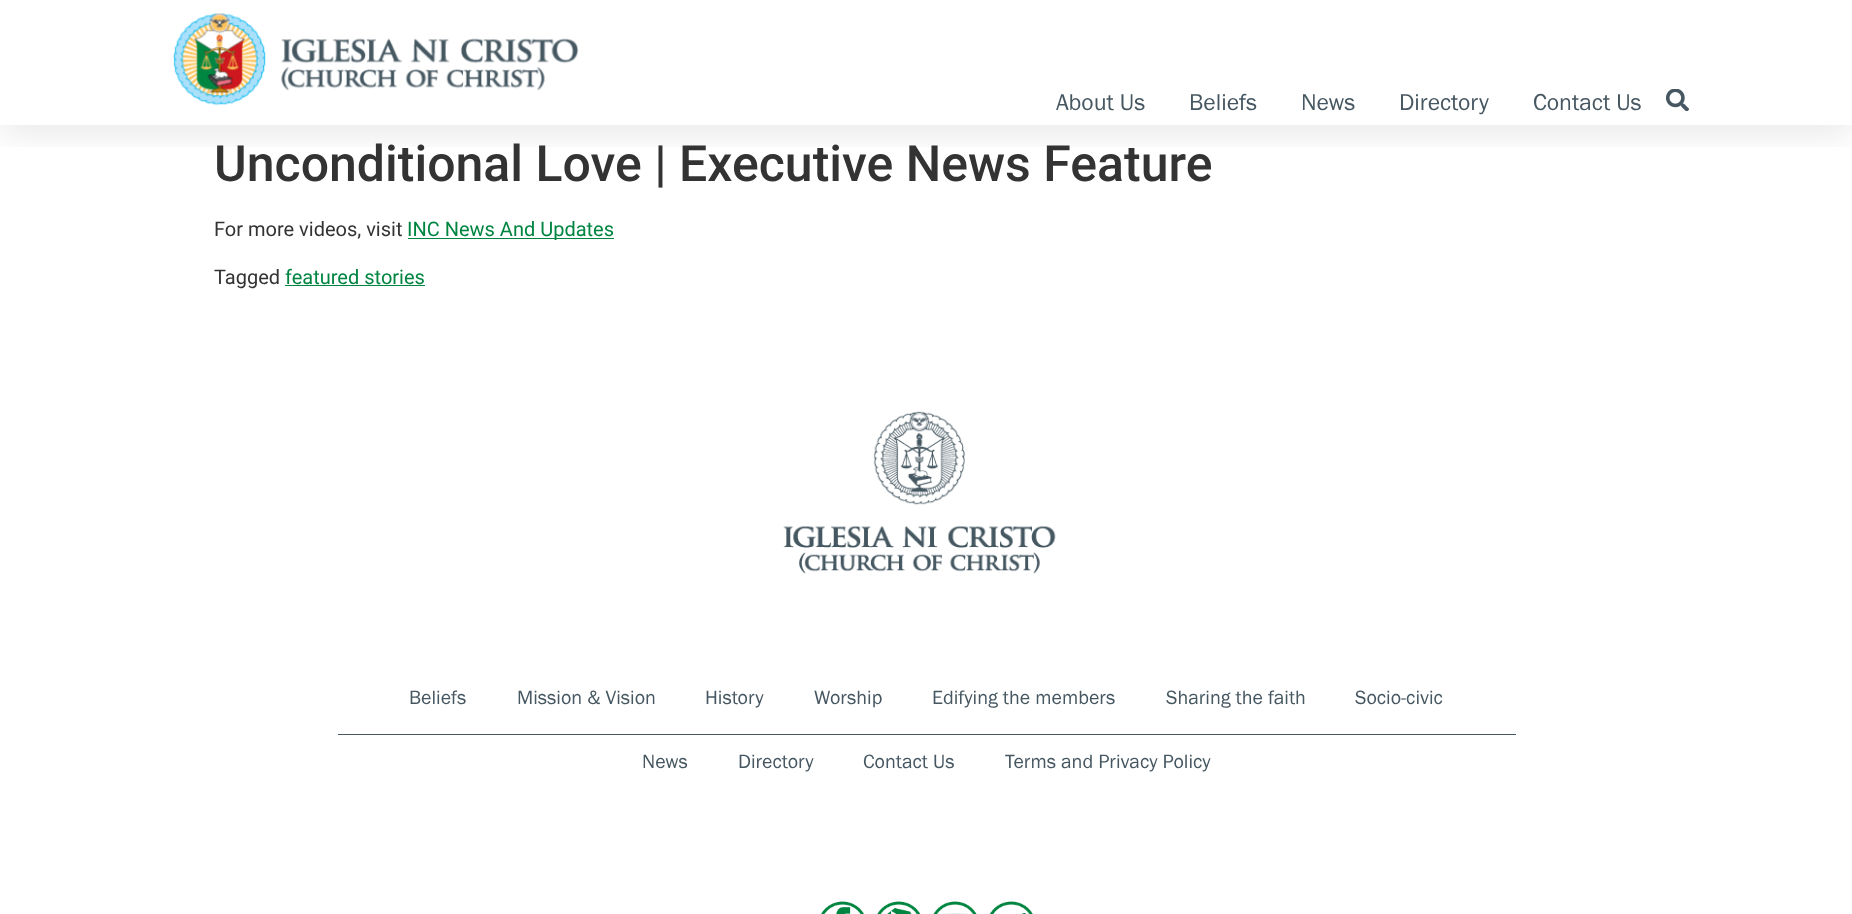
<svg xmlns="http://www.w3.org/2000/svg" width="1852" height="914">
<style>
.a{font:23.75px Franklin Gothic;fill:#465761}
.b{font:500 50px Roboto;fill:#333}
.c{font:20px Roboto;fill:#333}
.d{font:20px Roboto;fill:#008541}
.e{font:20px Franklin Gothic;fill:#465761}
</style>
<defs>
<clipPath id="clip1"><path d="M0 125h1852v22H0z"/></clipPath>
</defs>
<rect width="100%" height="100%" fill="#fff"/>
<g clip-path="url(#clip1)">
<path fill="#0000001a" filter="blur(19px)" d="M0 6h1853v125H0z"/>
</g>
<image href="1.png" x="173" y="13" width="406" height="93"/>
<image href="2.png" x="1666" y="89" width="23" height="22"/>
<path fill="#008541" d="M408 238h206v1H408z"/>
<path fill="#008541" d="M285 285h140v1H285z"/>
<image href="3.png" x="783" y="411" width="273" height="163"/>
<path fill="#465761" d="M338 734h1178v1H338z"/>
<image href="4.png" x="821" y="901" width="43" height="13"/>
<image href="5.png" x="877" y="901" width="44" height="13"/>
<image href="6.png" x="933" y="901" width="44" height="13"/>
<image href="7.png" x="989" y="901" width="44" height="13"/>
<text class="a" x="1056" y="110">About Us</text>
<text class="a" x="1189" y="110">Beliefs</text>
<text class="a" x="1301" y="110">News</text>
<text class="a" x="1399" y="110">Directory</text>
<text class="a" x="1533" y="110">Contact Us</text>
<text class="b" x="214" y="181">Unconditional Love | Executive News Feature</text>
<text class="c" x="214" y="236">For more videos, visit</text>
<text class="d" x="407" y="236">INC News And Updates</text>
<text class="c" x="214" y="284">Tagged</text>
<text class="d" x="285" y="284">featured stories</text>
<text class="e" x="409" y="704">Beliefs</text>
<text class="e" x="517" y="704">Mission &amp; Vision</text>
<text class="e" x="705" y="704">History</text>
<text class="e" x="814" y="704">Worship</text>
<text class="e" x="932" y="704">Edifying the members</text>
<text class="e" x="1166" y="704">Sharing the faith</text>
<text class="e" x="1355" y="704">Socio-civic</text>
<text class="e" x="642" y="768">News</text>
<text class="e" x="738" y="768">Directory</text>
<text class="e" x="863" y="768">Contact Us</text>
<text class="e" x="1005" y="768">Terms and Privacy Policy</text>
</svg>
